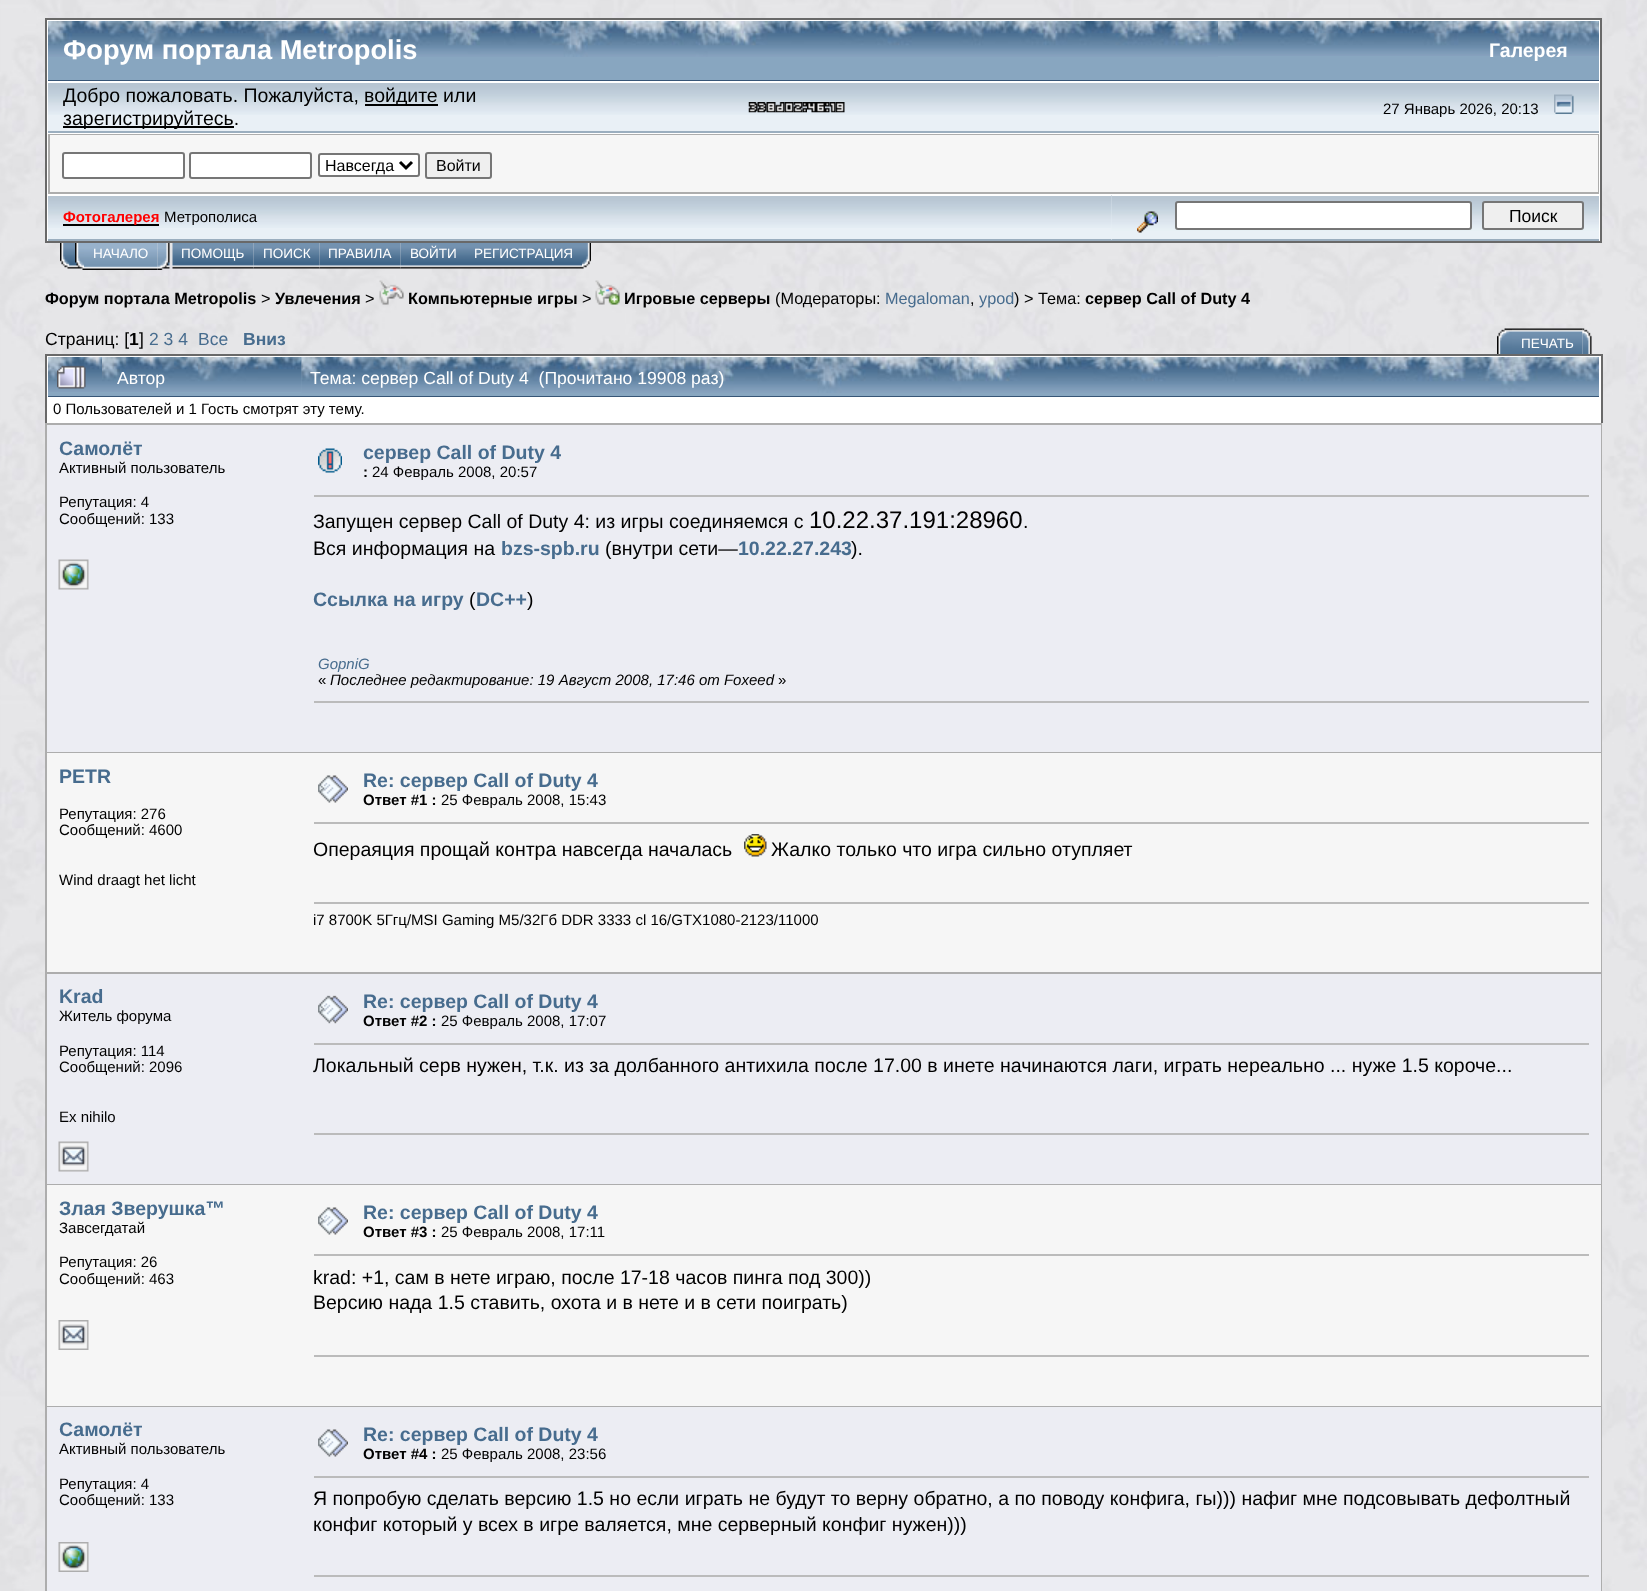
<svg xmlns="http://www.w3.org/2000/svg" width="1647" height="1591">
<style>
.a{font:bold 27.25px Liberation Sans;fill:#fff}
.b{font:bold 19.5px Liberation Sans;fill:#fff}
.c{font:19.5px Liberation Sans;fill:#000}
.d{font:15px Liberation Sans;fill:#000}
.e{font:16px Liberation Sans;fill:#000}
.f{font:bold 15px Liberation Sans;fill:#f00}
.g{font:17.5px Liberation Sans;fill:#000}
.h{font:13.5px Liberation Sans;fill:#fff}
.i{font:bold 16.25px Liberation Sans;fill:#000}
.j{font:16.25px Liberation Sans;fill:#000}
.k{font:16.25px Liberation Sans;fill:#476c8e}
.l{font:bold 17.5px Liberation Sans;fill:#000}
.m{font:17.5px Liberation Sans;fill:#476c8e}
.n{font:bold 17.5px Liberation Sans;fill:#476c8e}
.o{font:17.6px Liberation Sans;fill:#fff}
.p{font:bold 19.5px Liberation Sans;fill:#476c8e}
.q{font:bold 15px Liberation Sans;fill:#000}
.r{font:24px Liberation Sans;fill:#000}
.s{font:italic 15px Liberation Sans;fill:#476c8e}
.t{font:italic 15px Liberation Sans;fill:#000}
</style>
<rect width="100%" height="100%" fill="#fff"/>
<image href="1.png" x="0" y="0" width="1647" height="1591"/>
<path fill="#fff" stroke="#696969" stroke-width="2" d="M46 19h1555v223H46z"/>
<path fill="#88a6c0" d="M48 57h1170v23H48z"/>
<image href="2.png" x="48" y="21" width="1170" height="36"/>
<path fill="#375576" d="M48 80h1551v1H48z"/>
<path fill="#88a6c0" d="M1218 56h381v24H1218z"/>
<image href="3.png" x="1218" y="21" width="381" height="35"/>
<path fill="#e9f0f6" d="M48 115h1551v16H48z"/>
<image href="4.png" x="48" y="83" width="621" height="32"/>
<path fill="#9baebf" d="M48 131h1551v2H48z"/>
<path fill="#000" d="M365 104h73v2H365z"/>
<path fill="#000" d="M63 126h171v2H63z"/>
<image href="5.png" x="669" y="83" width="309" height="32"/>
<image href="6.png" x="748" y="102" width="10" height="11"/>
<image href="7.png" x="757" y="102" width="10" height="11"/>
<image href="8.png" x="766" y="102" width="10" height="11"/>
<image href="9.png" x="775" y="102" width="10" height="11"/>
<image href="10.png" x="784" y="102" width="10" height="11"/>
<image href="11.png" x="793" y="102" width="10" height="11"/>
<image href="12.png" x="802" y="102" width="5" height="11"/>
<image href="13.png" x="807" y="102" width="9" height="11"/>
<image href="14.png" x="816" y="102" width="9" height="11"/>
<image href="15.png" x="825" y="102" width="5" height="11"/>
<image href="16.png" x="829" y="102" width="7" height="11"/>
<image href="17.png" x="835" y="102" width="10" height="11"/>
<image href="4.png" x="978" y="83" width="621" height="32"/>
<image href="18.png" x="1554" y="94" width="20" height="20"/>
<path fill="#adadad" d="M48 134h1551v60H48z"/>
<path fill="#f6f6f6" d="M50 135h1548v57H50z"/>
<rect fill="#fff" stroke="#767676" stroke-width="2" x="63" y="153" width="121" height="25" rx="2"/>
<rect fill="#fff" stroke="#767676" stroke-width="2" x="190" y="153" width="121" height="25" rx="2"/>
<rect fill="#fff" stroke="#767676" stroke-width="2" x="319" y="154" width="100" height="22" rx="2"/>
<path fill="none" stroke="#000" stroke-width="3" d="M400 162l6 6l6-6"/>
<rect fill="#efefef" stroke="#767676" stroke-width="2" x="426" y="153" width="65" height="25" rx="2"/>
<path fill="#e9f0f6" d="M48 196h1064v43H48z"/>
<image href="19.png" x="48" y="196" width="1064" height="32"/>
<path fill="#9baebf" d="M48 239h1064v2H48z"/>
<path fill="#000" d="M63 224h96v2H63z"/>
<image href="20.png" x="1111" y="195" width="488" height="45"/>
<path fill="#fff" d="M1112 195h487v1H1112z"/>
<path fill="#9baebf" d="M1112 239h487v2H1112z"/>
<image href="21.png" x="1137" y="211" width="21" height="22"/>
<rect fill="#fff" stroke="#767676" stroke-width="2" x="1176" y="202" width="295" height="27" rx="2"/>
<rect fill="#efefef" stroke="#767676" stroke-width="2" x="1483" y="202" width="100" height="27" rx="2"/>
<image href="22.png" x="60" y="243" width="15" height="26"/>
<image href="23.png" x="75" y="243" width="9" height="27"/>
<image href="24.png" x="84" y="243" width="74" height="27"/>
<image href="25.png" x="157" y="243" width="13" height="27"/>
<image href="26.png" x="172" y="243" width="82" height="26"/>
<image href="27.png" x="253" y="243" width="67" height="26"/>
<image href="28.png" x="319" y="243" width="82" height="26"/>
<image href="29.png" x="400" y="243" width="65" height="26"/>
<image href="30.png" x="465" y="243" width="117" height="26"/>
<image href="31.png" x="582" y="243" width="9" height="26"/>
<image href="32.png" x="379" y="280" width="25" height="25"/>
<image href="33.png" x="595" y="280" width="25" height="25"/>
<image href="34.png" x="1497" y="328" width="15" height="26"/>
<image href="35.png" x="1512" y="328" width="71" height="26"/>
<image href="36.png" x="1582" y="328" width="10" height="26"/>
<path fill="#fff" d="M47 356h1554v67H47z"/>
<path fill="#696969" d="M45 354h1557v2H45z"/>
<path fill="#696969" d="M1601 354h2v69H1601z"/>
<path fill="#696969" d="M45 354h2v69H45z"/>
<path fill="#375576" d="M48 396h1551v1H48z"/>
<path fill="#88a6c0" d="M48 392h54v4H48z"/>
<image href="37.png" x="48" y="357" width="54" height="35"/>
<image href="38.png" x="57" y="365" width="29" height="24"/>
<path fill="#88a6c0" d="M102 357h200v39H102z"/>
<image href="39.png" x="102" y="357" width="200" height="35"/>
<path fill="#88a6c0" d="M302 393h1297v3H302z"/>
<image href="40.png" x="301" y="357" width="1298" height="36"/>
<path fill="#adadad" d="M45 423h1557v1168H45z"/>
<path fill="#ecedf3" d="M47 425h1554v327H47z"/>
<image href="41.png" x="58" y="559" width="31" height="31"/>
<image href="42.png" x="318" y="448" width="24" height="25"/>
<path fill="#bbb" d="M314 495h1275v2H314z"/>
<path fill="#bbb" d="M314 701h1275v2H314z"/>
<path fill="#f6f6f6" d="M47 753h1554v219H47z"/>
<image href="43.png" x="318" y="775" width="30" height="28"/>
<path fill="#bbb" d="M314 822h1275v2H314z"/>
<image href="44.png" x="744" y="834" width="23" height="23"/>
<path fill="#bbb" d="M314 902h1275v2H314z"/>
<path fill="#ecedf3" d="M47 974h1554v210H47z"/>
<image href="45.png" x="58" y="1141" width="31" height="31"/>
<image href="46.png" x="318" y="995" width="30" height="29"/>
<path fill="#bbb" d="M314 1043h1275v2H314z"/>
<path fill="#bbb" d="M314 1133h1275v2H314z"/>
<path fill="#f6f6f6" d="M47 1185h1554v221H47z"/>
<image href="47.png" x="58" y="1320" width="31" height="30"/>
<image href="43.png" x="318" y="1207" width="30" height="28"/>
<path fill="#bbb" d="M314 1254h1275v2H314z"/>
<path fill="#bbb" d="M314 1355h1275v2H314z"/>
<path fill="#ecedf3" d="M47 1407h1554v184H47z"/>
<image href="48.png" x="58" y="1542" width="31" height="30"/>
<image href="49.png" x="318" y="1429" width="30" height="28"/>
<path fill="#bbb" d="M314 1476h1275v2H314z"/>
<path fill="#bbb" d="M314 1575h1275v2H314z"/>
<text class="a" x="63" y="59">Форум портала Metropolis</text>
<text class="b" x="1489" y="57">Галерея</text>
<text class="c" x="63" y="102">Добро пожаловать. Пожалуйста,</text>
<text class="c" x="364" y="102">войдите или</text>
<text class="c" x="63" y="125">зарегистрируйтесь.</text>
<text class="d" x="1383" y="114">27 Январь 2026, 20:13</text>
<text class="e" x="325" y="171">Навсегда</text>
<text class="e" x="436" y="171">Войти</text>
<text class="f" x="63" y="222">Фотогалерея</text>
<text class="d" x="164" y="222">Метрополиса</text>
<text class="g" x="1509" y="222">Поиск</text>
<text class="h" x="93" y="258">НАЧАЛО</text>
<text class="h" x="181" y="258">ПОМОЩЬ</text>
<text class="h" x="263" y="258">ПОИСК</text>
<text class="h" x="328" y="258">ПРАВИЛА</text>
<text class="h" x="410" y="258">ВОЙТИ</text>
<text class="h" x="474" y="258">РЕГИСТРАЦИЯ</text>
<text class="i" x="45" y="304">Форум портала Metropolis</text>
<text class="j" x="261" y="304">&gt;</text>
<text class="i" x="275" y="304">Увлечения</text>
<text class="j" x="365" y="304">&gt;</text>
<text class="i" x="408" y="304">Компьютерные игры</text>
<text class="j" x="582" y="304">&gt;</text>
<text class="i" x="624" y="304">Игровые серверы</text>
<text class="j" x="775" y="304">(Модераторы:</text>
<text class="k" x="885" y="304">Megaloman</text>
<text class="k" x="979" y="304">ypod</text>
<text class="j" x="1014" y="304">) &gt; Тема:</text>
<text class="i" x="1085" y="304">сервер Call of Duty 4</text>
<text class="j" x="970" y="304">,</text>
<text class="g" x="45" y="345">Страниц: [</text>
<text class="l" x="129" y="345">1</text>
<text class="g" x="139" y="345">]</text>
<text class="m" x="149" y="345">2 3 4</text>
<text class="m" x="198" y="345">Все</text>
<text class="n" x="243" y="345">Вниз</text>
<text class="h" x="1521" y="348">ПЕЧАТЬ</text>
<text class="o" x="117" y="384">Автор</text>
<text class="o" xml:space="preserve" x="310" y="384">Тема: сервер Call of Duty 4  (Прочитано 19908 раз)</text>
<text class="d" x="53" y="414">0 Пользователей и 1 Гость смотрят эту тему.</text>
<text class="p" x="59" y="455">Самолёт</text>
<text class="d" x="59" y="473">Активный пользователь</text>
<text class="d" x="59" y="507">Репутация: 4</text>
<text class="d" x="59" y="524">Сообщений: 133</text>
<text class="p" x="363" y="459">сервер Call of Duty 4</text>
<text class="q" x="363" y="477">:</text>
<text class="d" x="372" y="477">24 Февраль 2008, 20:57</text>
<text class="c" x="313" y="528">Запущен сервер Call of Duty 4: из игры соединяемся с</text>
<text class="r" x="809" y="528">10.22.37.191:28960</text>
<text class="c" x="1023" y="528">.</text>
<text class="c" x="313" y="555">Вся информация на</text>
<text class="p" x="501" y="555">bzs-spb.ru</text>
<text class="c" x="605" y="555">(внутри сети—</text>
<text class="p" x="738" y="555">10.22.27.243</text>
<text class="c" x="851" y="555">).</text>
<text class="p" x="313" y="606">Cсылка на игру</text>
<text class="c" x="469" y="606">(</text>
<text class="p" x="476" y="606">DC++</text>
<text class="c" x="527" y="606">)</text>
<text class="s" x="318" y="669">GopniG</text>
<text class="d" x="318" y="685">«</text>
<text class="t" x="330" y="685">Последнее редактирование: 19 Август 2008, 17:46 от Foxeed</text>
<text class="d" x="778" y="685">»</text>
<text class="p" x="59" y="783">PETR</text>
<text class="d" x="59" y="819">Репутация: 276</text>
<text class="d" x="59" y="835">Сообщений: 4600</text>
<text class="d" x="59" y="885">Wind draagt het licht</text>
<text class="p" x="363" y="787">Re: сервер Call of Duty 4</text>
<text class="q" x="363" y="805">Ответ #1 :</text>
<text class="d" x="441" y="805">25 Февраль 2008, 15:43</text>
<text class="c" x="313" y="856">Операяция прощай контра навсегда началась</text>
<text class="c" x="771" y="856">Жалко только что игра сильно отупляет</text>
<text class="d" x="313" y="925">i7 8700K 5Ггц/MSI Gaming M5/32Гб DDR 3333 cl 16/GTX1080-2123/11000</text>
<text class="p" x="59" y="1003">Krad</text>
<text class="d" x="59" y="1021">Житель форума</text>
<text class="d" x="59" y="1056">Репутация: 114</text>
<text class="d" x="59" y="1072">Сообщений: 2096</text>
<text class="d" x="59" y="1122">Ex nihilo</text>
<text class="p" x="363" y="1008">Re: сервер Call of Duty 4</text>
<text class="q" x="363" y="1026">Ответ #2 :</text>
<text class="d" x="441" y="1026">25 Февраль 2008, 17:07</text>
<text class="c" x="313" y="1072">Локальный серв нужен, т.к. из за долбанного антихила после 17.00 в инете начинаются лаги, играть нереально ... нуже 1.5 короче...</text>
<text class="p" x="59" y="1215">Злая Зверушка™</text>
<text class="d" x="59" y="1233">Завсегдатай</text>
<text class="d" x="59" y="1267">Репутация: 26</text>
<text class="d" x="59" y="1284">Сообщений: 463</text>
<text class="p" x="363" y="1219">Re: сервер Call of Duty 4</text>
<text class="q" x="363" y="1237">Ответ #3 :</text>
<text class="d" x="441" y="1237">25 Февраль 2008, 17:11</text>
<text class="c" x="313" y="1284">krad: +1, сам в нете играю, после 17-18 часов пинга под 300))</text>
<text class="c" x="313" y="1309">Версию нада 1.5 ставить, охота и в нете и в сети поиграть)</text>
<text class="p" x="59" y="1436">Самолёт</text>
<text class="d" x="59" y="1454">Активный пользователь</text>
<text class="d" x="59" y="1489">Репутация: 4</text>
<text class="d" x="59" y="1505">Сообщений: 133</text>
<text class="p" x="363" y="1441">Re: сервер Call of Duty 4</text>
<text class="q" x="363" y="1459">Ответ #4 :</text>
<text class="d" x="441" y="1459">25 Февраль 2008, 23:56</text>
<text class="c" x="313" y="1505">Я попробую сделать версию 1.5 но если играть не будут то верну обратно, а по поводу конфига, гы))) нафиг мне подсовывать дефолтный</text>
<text class="c" x="313" y="1531">конфиг который у всех в игре валяется, мне серверный конфиг нужен)))</text>
</svg>
